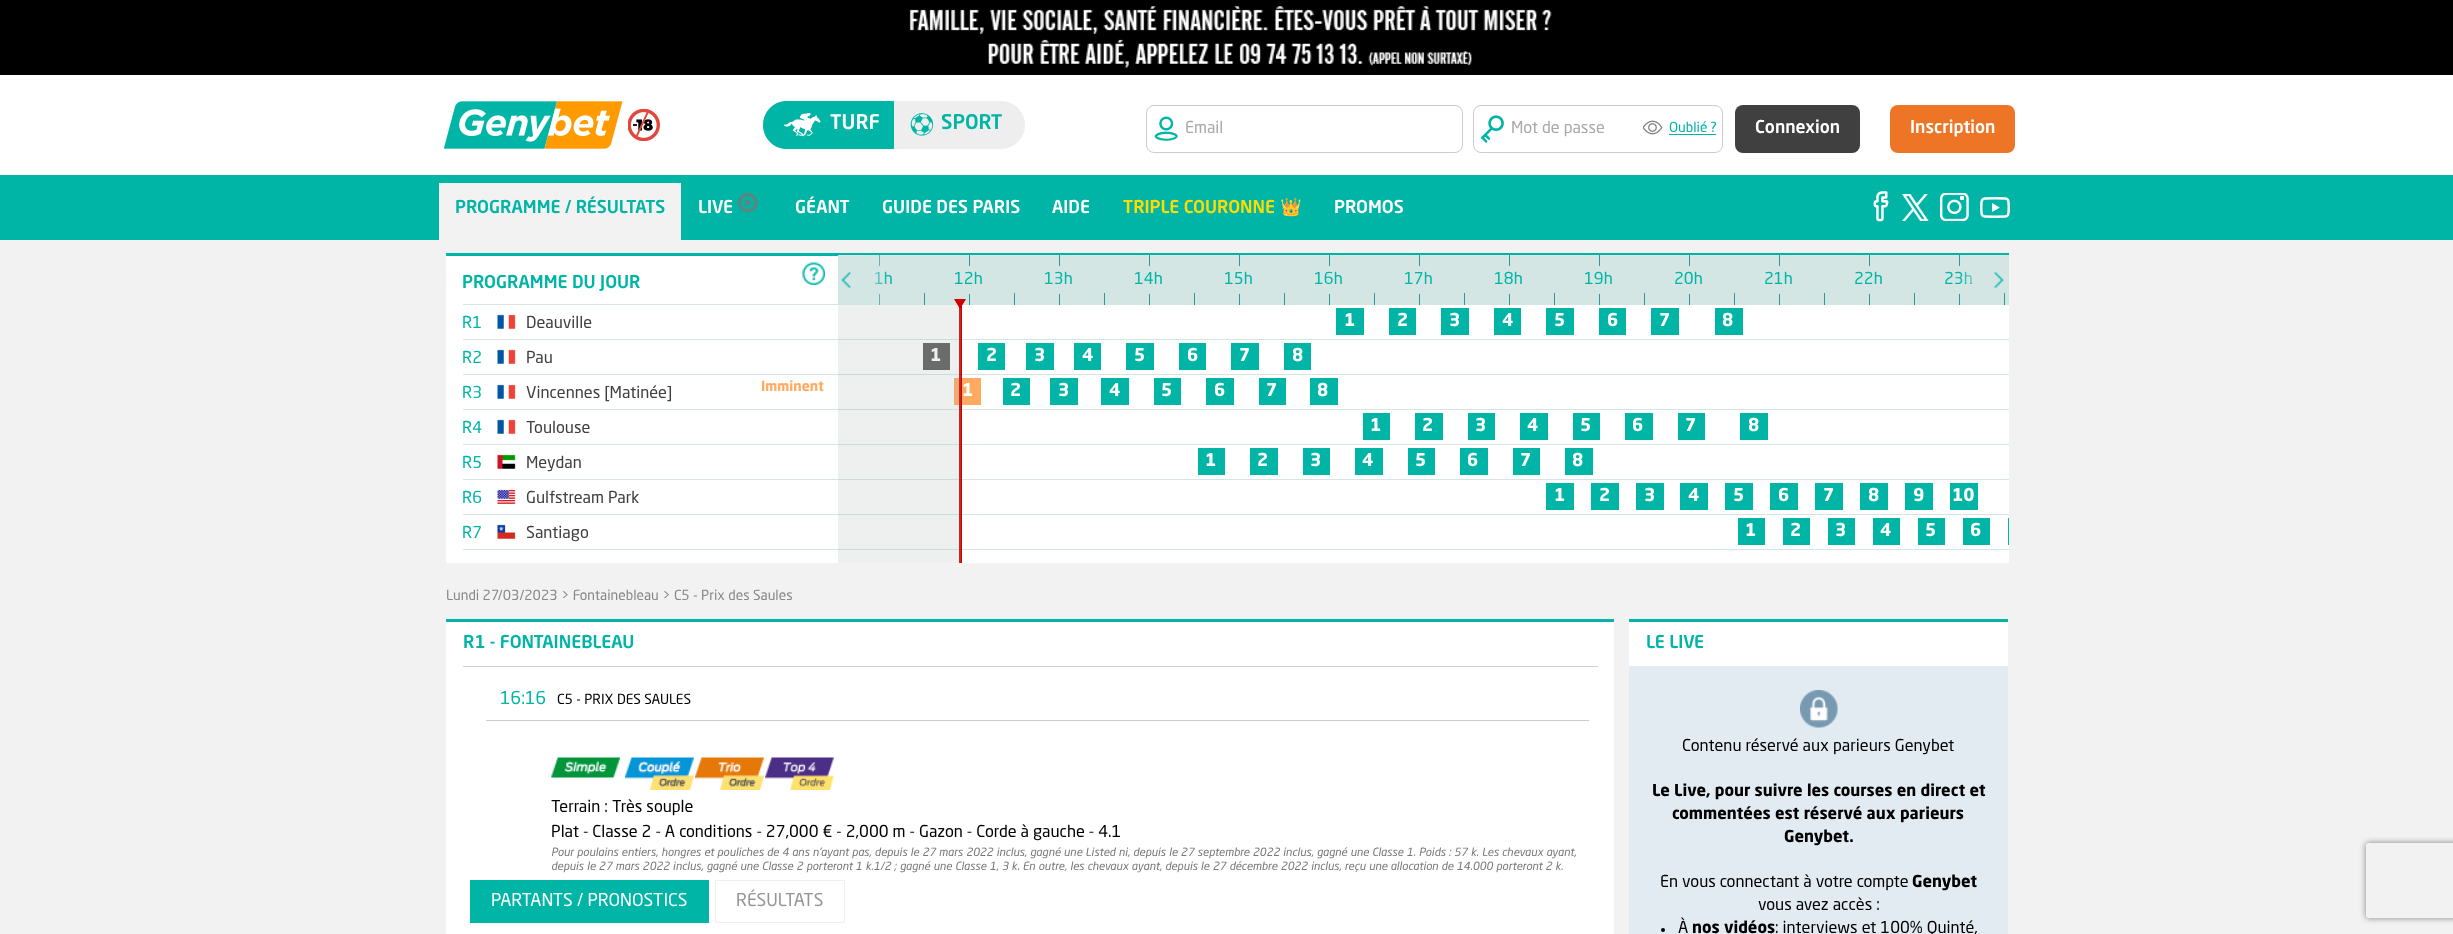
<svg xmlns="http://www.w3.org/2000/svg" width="2453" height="934">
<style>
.a{font:500 20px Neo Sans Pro;fill:#fff}
.b{font:500 20px Neo Sans Pro;fill:#00b5a6}
.c{font:16.25px Neo Sans Pro;fill:#a9a9a9}
.d{font:13.75px Neo Sans Pro;fill:#00b5a6}
.e{font:500 17.5px Neo Sans Pro;fill:#fff}
.f{font:500 17.5px Neo Sans Pro;fill:#00b5a6}
.g{font:500 17.5px Neo Sans Pro;fill:#ffdc00}
.h{font:bold 17.5px Noto Color Emoji;fill:#ffdc00}
.i{font:16.25px Neo Sans Pro;fill:#00b5a6}
.j{font:16.25px Neo Sans Pro;fill:#404040}
.k{font:bold 13.75px Neo Sans Pro;fill:#ffa961}
.l{font:bold 17.5px Neo Sans Pro;fill:#fff}
.m{font:bold 17.5px Neo Sans Pro;fill:#eef0f0}
.n{font:13.75px Neo Sans Pro;fill:#888}
.o{font:17.5px Neo Sans Pro;fill:#00b5a6}
.p{font:13.75px Neo Sans Pro;fill:#000}
.q{font:16.25px Neo Sans Pro;fill:#000}
.r{font:italic 11.25px Neo Sans Pro;fill:#777}
.s{font:17.5px Neo Sans Pro;fill:#fff}
.t{font:17.5px Neo Sans Pro;fill:#959595}
.u{font:bold 16.25px Neo Sans Pro;fill:#000}
</style>
<defs>
<clipPath id="clip1"><path d="M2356 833h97v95h-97zm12.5 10h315c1.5 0 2.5 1 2.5 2.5v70c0 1.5-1 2.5-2.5 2.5h-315c-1.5 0-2.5-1-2.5-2.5v-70c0-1.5 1-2.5 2.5-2.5z" clip-rule="evenodd"/></clipPath>
<linearGradient id="g1" gradientUnits="userSpaceOnUse" x1="838" y1="280" x2="888" y2="280"><stop offset="0" stop-color="#d4e6e4"/><stop offset="0.5" stop-color="#d4e6e4"/><stop offset="1" stop-color="#d4e6e4" stop-opacity="0"/></linearGradient>
<linearGradient id="g2" gradientUnits="userSpaceOnUse" x1="1959" y1="269" x2="2009" y2="269"><stop offset="0" stop-color="#d4e6e4" stop-opacity="0"/><stop offset="0.5" stop-color="#d4e6e4"/><stop offset="1" stop-color="#d4e6e4"/></linearGradient>
</defs>
<rect width="100%" height="100%" fill="#f2f2f2"/>
<path fill="#000" d="M0 0h2453v75H0z"/>
<image href="1.png" x="909" y="6" width="643" height="62"/>
<path fill="#fff" d="M0 75h2453v100H0z"/>
<image href="2.png" x="444" y="101" width="179" height="48"/>
<image href="3.png" x="628" y="109" width="32" height="32"/>
<rect fill="#eee" x="763" y="101" width="262" height="48" rx="24"/>
<path fill="#00b5a6" d="M787 101h107v48h-107c-13.5 0-24-10.5-24-24c0-13.5 10.5-24 24-24z"/>
<image href="4.png" x="784" y="113" width="37" height="24"/>
<image href="5.png" x="910" y="113" width="24" height="23"/>
<rect fill="none" stroke="#ccc" x="1146.5" y="105.5" width="316" height="47" rx="7.5"/>
<image href="6.png" x="1154" y="116" width="24" height="25"/>
<rect fill="none" stroke="#ccc" x="1473.5" y="105.5" width="249" height="47" rx="7.5"/>
<image href="7.png" x="1481" y="115" width="23" height="28"/>
<image href="8.png" x="1643" y="120" width="20" height="15"/>
<path fill="#00b5a6" d="M1669 134h47v1H1669z"/>
<rect fill="#404040" x="1735" y="105" width="125" height="48" rx="8"/>
<rect fill="#ed7525" x="1890" y="105" width="125" height="48" rx="8"/>
<path fill="#00b5a6" d="M0 175h2453v65H0z"/>
<path fill="#f2f2f2" d="M439 183h242v57H439z"/>
<image href="9.png" x="737" y="192" width="21" height="21"/>
<image href="10.png" x="1873" y="191" width="16" height="31"/>
<image href="11.png" x="1902" y="194" width="27" height="27"/>
<image href="12.png" x="1940" y="193" width="29" height="28"/>
<image href="13.png" x="1980" y="197" width="30" height="21"/>
<path fill="#fff" d="M446 256h1563v307H446z"/>
<path fill="#eef0f0" d="M838 305h121v258H838z"/>
<path fill="#00b5a6" d="M446 253h1563v3H446z"/>
<path fill="#d4e6e4" d="M463 304h375v1H463z"/>
<image href="14.png" x="802" y="262" width="23" height="23"/>
<path fill="#d4e6e4" d="M463 339h375v1H463z"/>
<image href="15.png" x="497" y="314" width="19" height="15"/>
<path fill="#d4e6e4" d="M463 374h375v1H463z"/>
<image href="15.png" x="497" y="349" width="19" height="15"/>
<path fill="#d4e6e4" d="M463 409h375v1H463z"/>
<image href="15.png" x="497" y="384" width="19" height="15"/>
<path fill="#d4e6e4" d="M463 444h375v1H463z"/>
<image href="15.png" x="497" y="419" width="19" height="15"/>
<path fill="#d4e6e4" d="M463 479h375v1H463z"/>
<image href="16.png" x="497" y="454" width="19" height="15"/>
<path fill="#d4e6e4" d="M463 514h375v1H463z"/>
<image href="17.png" x="497" y="489" width="19" height="15"/>
<path fill="#d4e6e4" d="M463 549h375v1H463z"/>
<image href="18.png" x="497" y="524" width="19" height="15"/>
<path fill="#d4e6e4" d="M863 255h1146v50H863z"/>
<path fill="#289e93" d="M879 255h1v11H879z"/>
<path fill="#289e93" d="M879 294h1v11H879z"/>
<path fill="#289e93" d="M969 255h1v11H969z"/>
<path fill="#289e93" d="M969 294h1v11H969z"/>
<path fill="#289e93" d="M1059 255h1v11H1059z"/>
<path fill="#289e93" d="M1059 294h1v11H1059z"/>
<path fill="#289e93" d="M1149 255h1v11H1149z"/>
<path fill="#289e93" d="M1149 294h1v11H1149z"/>
<path fill="#289e93" d="M1239 255h1v11H1239z"/>
<path fill="#289e93" d="M1239 294h1v11H1239z"/>
<path fill="#289e93" d="M1329 255h1v11H1329z"/>
<path fill="#289e93" d="M1329 294h1v11H1329z"/>
<path fill="#289e93" d="M1419 255h1v11H1419z"/>
<path fill="#289e93" d="M1419 294h1v11H1419z"/>
<path fill="#289e93" d="M1509 255h1v11H1509z"/>
<path fill="#289e93" d="M1509 294h1v11H1509z"/>
<path fill="#289e93" d="M1599 255h1v11H1599z"/>
<path fill="#289e93" d="M1599 294h1v11H1599z"/>
<path fill="#289e93" d="M1689 255h1v11H1689z"/>
<path fill="#289e93" d="M1689 294h1v11H1689z"/>
<path fill="#289e93" d="M1779 255h1v11H1779z"/>
<path fill="#289e93" d="M1779 294h1v11H1779z"/>
<path fill="#289e93" d="M1869 255h1v11H1869z"/>
<path fill="#289e93" d="M1869 294h1v11H1869z"/>
<path fill="#289e93" d="M1959 255h1v11H1959z"/>
<path fill="#289e93" d="M1959 294h1v11H1959z"/>
<path fill="#289e93" d="M924 293h1v12H924z"/>
<path fill="#289e93" d="M1014 293h1v12H1014z"/>
<path fill="#289e93" d="M1104 293h1v12H1104z"/>
<path fill="#289e93" d="M1194 293h1v12H1194z"/>
<path fill="#289e93" d="M1284 293h1v12H1284z"/>
<path fill="#289e93" d="M1374 293h1v12H1374z"/>
<path fill="#289e93" d="M1464 293h1v12H1464z"/>
<path fill="#289e93" d="M1554 293h1v12H1554z"/>
<path fill="#289e93" d="M1644 293h1v12H1644z"/>
<path fill="#289e93" d="M1734 293h1v12H1734z"/>
<path fill="#289e93" d="M1824 293h1v12H1824z"/>
<path fill="#289e93" d="M1914 293h1v12H1914z"/>
<path fill="#289e93" d="M2004 293h1v12H2004z"/>
<path fill="#ce0000" d="M961 305h1v258H961z"/>
<path fill="#ccdcda" d="M838 339h123v1H838z"/>
<path fill="#ccdcda" d="M838 374h123v1H838z"/>
<path fill="#ccdcda" d="M838 409h123v1H838z"/>
<path fill="#ccdcda" d="M838 444h123v1H838z"/>
<path fill="#ccdcda" d="M838 479h123v1H838z"/>
<path fill="#ccdcda" d="M838 514h123v1H838z"/>
<path fill="#ccdcda" d="M838 549h123v1H838z"/>
<path fill="#c72424" d="M959 305h2v258H959z"/>
<path fill="#ce0000" d="M954 299h12l-6 10z"/>
<path fill="#d4e6e4" d="M962 339h1047v1H962z"/>
<path fill="#00b5a6" d="M1336 308h28v27H1336z"/>
<path fill="#00b5a6" d="M1389 308h27v27H1389z"/>
<path fill="#00b5a6" d="M1441 308h28v27H1441z"/>
<path fill="#00b5a6" d="M1494 308h27v27H1494z"/>
<path fill="#00b5a6" d="M1546 308h28v27H1546z"/>
<path fill="#00b5a6" d="M1599 308h27v27H1599z"/>
<path fill="#00b5a6" d="M1651 308h28v27H1651z"/>
<path fill="#00b5a6" d="M1715 308h28v27H1715z"/>
<path fill="#d4e6e4" d="M962 374h1047v1H962z"/>
<path fill="#6a6c6c" d="M923 343h27v27H923z"/>
<path fill="#00b5a6" d="M978 343h27v27H978z"/>
<path fill="#00b5a6" d="M1026 343h28v27H1026z"/>
<path fill="#00b5a6" d="M1074 343h27v27H1074z"/>
<path fill="#00b5a6" d="M1126 343h28v27H1126z"/>
<path fill="#00b5a6" d="M1179 343h27v27H1179z"/>
<path fill="#00b5a6" d="M1231 343h28v27H1231z"/>
<path fill="#00b5a6" d="M1284 343h27v27H1284z"/>
<path fill="#d4e6e4" d="M962 409h1047v1H962z"/>
<path fill="#ffa961" d="M962 378h19v27H962z"/>
<path fill="#eeab71" d="M954 378h5v27H954z"/>
<path fill="#00b5a6" d="M1003 378h27v27H1003z"/>
<path fill="#00b5a6" d="M1050 378h28v27H1050z"/>
<path fill="#00b5a6" d="M1101 378h28v27H1101z"/>
<path fill="#00b5a6" d="M1154 378h27v27H1154z"/>
<path fill="#00b5a6" d="M1206 378h28v27H1206z"/>
<path fill="#00b5a6" d="M1259 378h27v27H1259z"/>
<path fill="#00b5a6" d="M1310 378h28v27H1310z"/>
<path fill="#d4e6e4" d="M962 444h1047v1H962z"/>
<path fill="#00b5a6" d="M1363 413h27v27H1363z"/>
<path fill="#00b5a6" d="M1415 413h28v27H1415z"/>
<path fill="#00b5a6" d="M1468 413h27v27H1468z"/>
<path fill="#00b5a6" d="M1520 413h28v27H1520z"/>
<path fill="#00b5a6" d="M1573 413h27v27H1573z"/>
<path fill="#00b5a6" d="M1625 413h28v27H1625z"/>
<path fill="#00b5a6" d="M1678 413h27v27H1678z"/>
<path fill="#00b5a6" d="M1740 413h28v27H1740z"/>
<path fill="#d4e6e4" d="M962 479h1047v1H962z"/>
<path fill="#00b5a6" d="M1198 448h27v27H1198z"/>
<path fill="#00b5a6" d="M1250 448h28v27H1250z"/>
<path fill="#00b5a6" d="M1303 448h27v27H1303z"/>
<path fill="#00b5a6" d="M1355 448h28v27H1355z"/>
<path fill="#00b5a6" d="M1408 448h27v27H1408z"/>
<path fill="#00b5a6" d="M1460 448h28v27H1460z"/>
<path fill="#00b5a6" d="M1513 448h27v27H1513z"/>
<path fill="#00b5a6" d="M1565 448h28v27H1565z"/>
<path fill="#d4e6e4" d="M962 514h1047v1H962z"/>
<path fill="#00b5a6" d="M1546 483h28v27H1546z"/>
<path fill="#00b5a6" d="M1591 483h28v27H1591z"/>
<path fill="#00b5a6" d="M1636 483h28v27H1636z"/>
<path fill="#00b5a6" d="M1680 483h28v27H1680z"/>
<path fill="#00b5a6" d="M1725 483h28v27H1725z"/>
<path fill="#00b5a6" d="M1770 483h28v27H1770z"/>
<path fill="#00b5a6" d="M1815 483h28v27H1815z"/>
<path fill="#00b5a6" d="M1860 483h28v27H1860z"/>
<path fill="#00b5a6" d="M1905 483h28v27H1905z"/>
<path fill="#00b5a6" d="M1950 483h28v27H1950z"/>
<path fill="#d4e6e4" d="M962 549h1047v1H962z"/>
<path fill="#00b5a6" d="M1738 518h27v27H1738z"/>
<path fill="#00b5a6" d="M1783 518h27v27H1783z"/>
<path fill="#00b5a6" d="M1828 518h27v27H1828z"/>
<path fill="#00b5a6" d="M1873 518h27v27H1873z"/>
<path fill="#00b5a6" d="M1918 518h27v27H1918z"/>
<path fill="#00b5a6" d="M1963 518h27v27H1963z"/>
<path fill="#00b5a6" d="M2008 518h1v27H2008z"/>
<image href="20.png" x="1993" y="271" width="11" height="18"/>
<path fill="#fff" d="M446 622h1168v312H446z"/>
<path fill="#00b5a6" d="M446 619h1168v3H446z"/>
<path fill="#d1d1d1" d="M463 666h1135v1H463z"/>
<path fill="#ccc" d="M486 720h1103v1H486z"/>
<image href="21.png" x="551" y="757" width="69" height="21"/>
<image href="22.png" x="625" y="757" width="69" height="33"/>
<image href="23.png" x="695" y="757" width="69" height="33"/>
<image href="24.png" x="765" y="757" width="69" height="33"/>
<path fill="#00b5a6" d="M470 880h239v43H470z"/>
<path fill="none" stroke="#eee" d="M715.5 880.5h129v42H715.5z"/>
<path fill="#fff" d="M1629 622h379v44H1629z"/>
<path fill="#00b5a6" d="M1629 619h379v3H1629z"/>
<path fill="#e2ebf2" d="M1629 666h379v268H1629z"/>
<image href="25.png" x="1800" y="690" width="38" height="38"/>
<circle fill="#000" cx="1663" cy="930" r="2"/>
<g clip-path="url(#clip1)">
<rect fill="#808080" filter="blur(3px)" x="2366" y="843" width="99" height="75" rx="2.5"/>
</g>
<text class="a" x="830" y="129">TURF</text>
<text class="b" x="941" y="129">SPORT</text>
<text class="c" x="1185" y="133">Email</text>
<text class="c" x="1511" y="133">Mot de passe</text>
<text class="d" x="1669" y="132">Oublié ?</text>
<text class="e" x="1755" y="133">Connexion</text>
<text class="e" x="1910" y="133">Inscription</text>
<text class="f" x="455" y="213">PROGRAMME / RÉSULTATS</text>
<text class="e" x="698" y="213">LIVE</text>
<text class="e" x="795" y="213">GÉANT</text>
<text class="e" x="882" y="213">GUIDE DES PARIS</text>
<text class="e" x="1052" y="213">AIDE</text>
<text class="g" x="1123" y="213">TRIPLE COURONNE</text>
<text class="h" x="1280" y="213">👑</text>
<text class="e" x="1334" y="213">PROMOS</text>
<text class="f" x="462" y="288">PROGRAMME DU JOUR</text>
<text class="i" x="462" y="328">R1</text>
<text class="j" x="526" y="328">Deauville</text>
<text class="i" x="462" y="363">R2</text>
<text class="j" x="526" y="363">Pau</text>
<text class="i" x="462" y="398">R3</text>
<text class="j" x="526" y="398">Vincennes [Matinée]</text>
<text class="k" x="761" y="391">Imminent</text>
<text class="i" x="462" y="433">R4</text>
<text class="j" x="526" y="433">Toulouse</text>
<text class="i" x="462" y="468">R5</text>
<text class="j" x="526" y="468">Meydan</text>
<text class="i" x="462" y="503">R6</text>
<text class="j" x="526" y="503">Gulfstream Park</text>
<text class="i" x="462" y="538">R7</text>
<text class="j" x="526" y="538">Santiago</text>
<text class="i" x="874" y="284">1h</text>
<path fill="url(#g1)" d="M838 255h49v50H838z"/>
<image href="19.png" x="841" y="271" width="11" height="18"/>
<text class="i" x="954" y="284">12h</text>
<text class="i" x="1044" y="284">13h</text>
<text class="i" x="1134" y="284">14h</text>
<text class="i" x="1224" y="284">15h</text>
<text class="i" x="1314" y="284">16h</text>
<text class="i" x="1404" y="284">17h</text>
<text class="i" x="1494" y="284">18h</text>
<text class="i" x="1584" y="284">19h</text>
<text class="i" x="1674" y="284">20h</text>
<text class="i" x="1764" y="284">21h</text>
<text class="i" x="1854" y="284">22h</text>
<text class="i" x="1944" y="284">23h</text>
<text class="l" x="1344" y="326">1</text>
<text class="l" x="1397" y="326">2</text>
<text class="l" x="1449" y="326">3</text>
<text class="l" x="1502" y="326">4</text>
<text class="l" x="1554" y="326">5</text>
<text class="l" x="1607" y="326">6</text>
<text class="l" x="1659" y="326">7</text>
<text class="l" x="1722" y="326">8</text>
<text class="m" x="930" y="361">1</text>
<text class="l" x="986" y="361">2</text>
<text class="l" x="1034" y="361">3</text>
<text class="l" x="1082" y="361">4</text>
<text class="l" x="1134" y="361">5</text>
<text class="l" x="1187" y="361">6</text>
<text class="l" x="1239" y="361">7</text>
<text class="l" x="1292" y="361">8</text>
<text class="l" x="962" y="396">1</text>
<text class="l" x="1010" y="396">2</text>
<text class="l" x="1058" y="396">3</text>
<text class="l" x="1109" y="396">4</text>
<text class="l" x="1161" y="396">5</text>
<text class="l" x="1214" y="396">6</text>
<text class="l" x="1266" y="396">7</text>
<text class="l" x="1317" y="396">8</text>
<text class="l" x="1370" y="431">1</text>
<text class="l" x="1422" y="431">2</text>
<text class="l" x="1475" y="431">3</text>
<text class="l" x="1527" y="431">4</text>
<text class="l" x="1580" y="431">5</text>
<text class="l" x="1632" y="431">6</text>
<text class="l" x="1685" y="431">7</text>
<text class="l" x="1748" y="431">8</text>
<text class="l" x="1205" y="466">1</text>
<text class="l" x="1257" y="466">2</text>
<text class="l" x="1310" y="466">3</text>
<text class="l" x="1362" y="466">4</text>
<text class="l" x="1415" y="466">5</text>
<text class="l" x="1467" y="466">6</text>
<text class="l" x="1520" y="466">7</text>
<text class="l" x="1572" y="466">8</text>
<text class="l" x="1554" y="501">1</text>
<text class="l" x="1599" y="501">2</text>
<text class="l" x="1644" y="501">3</text>
<text class="l" x="1688" y="501">4</text>
<text class="l" x="1733" y="501">5</text>
<text class="l" x="1778" y="501">6</text>
<text class="l" x="1823" y="501">7</text>
<text class="l" x="1868" y="501">8</text>
<text class="l" x="1913" y="501">9</text>
<text class="l" x="1952" y="501">10</text>
<text class="l" x="1745" y="536">1</text>
<text class="l" x="1790" y="536">2</text>
<text class="l" x="1835" y="536">3</text>
<text class="l" x="1880" y="536">4</text>
<text class="l" x="1925" y="536">5</text>
<text class="l" x="1970" y="536">6</text>
<path fill="url(#g2)" d="M1960 271h12v12H1960z"/>
<text class="n" x="446" y="600">Lundi 27/03/2023 &gt; Fontainebleau &gt; C5 - Prix des Saules</text>
<text class="f" x="463" y="648">R1 - FONTAINEBLEAU</text>
<text class="o" x="500" y="704">16:16</text>
<text class="p" x="557" y="704">C5 - PRIX DES SAULES</text>
<text class="q" x="551" y="812">Terrain : Très souple</text>
<text class="q" x="551" y="837">Plat - Classe 2 - A conditions - 27,000 € - 2,000 m - Gazon - Corde à gauche - 4.1</text>
<text class="r" x="551" y="856">Pour poulains entiers, hongres et pouliches de 4 ans n'ayant pas, depuis le 27 mars 2022 inclus, gagné une Listed ni, depuis le 27 septembre 2022 inclus, gagné une Classe 1. Poids : 57 k. Les chevaux ayant,</text>
<text class="r" x="551" y="870">depuis le 27 mars 2022 inclus, gagné une Classe 2 porteront 1 k.1/2 ; gagné une Classe 1, 3 k. En outre, les chevaux ayant, depuis le 27 décembre 2022 inclus, reçu une allocation de 14.000 porteront 2 k.</text>
<text class="s" x="491" y="906">PARTANTS / PRONOSTICS</text>
<text class="t" x="736" y="906">RÉSULTATS</text>
<text class="f" x="1646" y="648">LE LIVE</text>
<text class="q" x="1682" y="751">Contenu réservé aux parieurs Genybet</text>
<text class="u" x="1652" y="796">Le Live, pour suivre les courses en direct et</text>
<text class="u" x="1672" y="819">commentées est réservé aux parieurs</text>
<text class="u" x="1784" y="842">Genybet.</text>
<text class="q" x="1660" y="887">En vous connectant à votre compte</text>
<text class="u" x="1912" y="887">Genybet</text>
<text class="q" x="1758" y="910">vous avez accès :</text>
<text class="q" x="1678" y="933">À</text>
<text class="u" x="1692" y="933">nos vidéos</text>
<text class="q" x="1775" y="933">: interviews et 100% Quinté,</text>
</svg>
